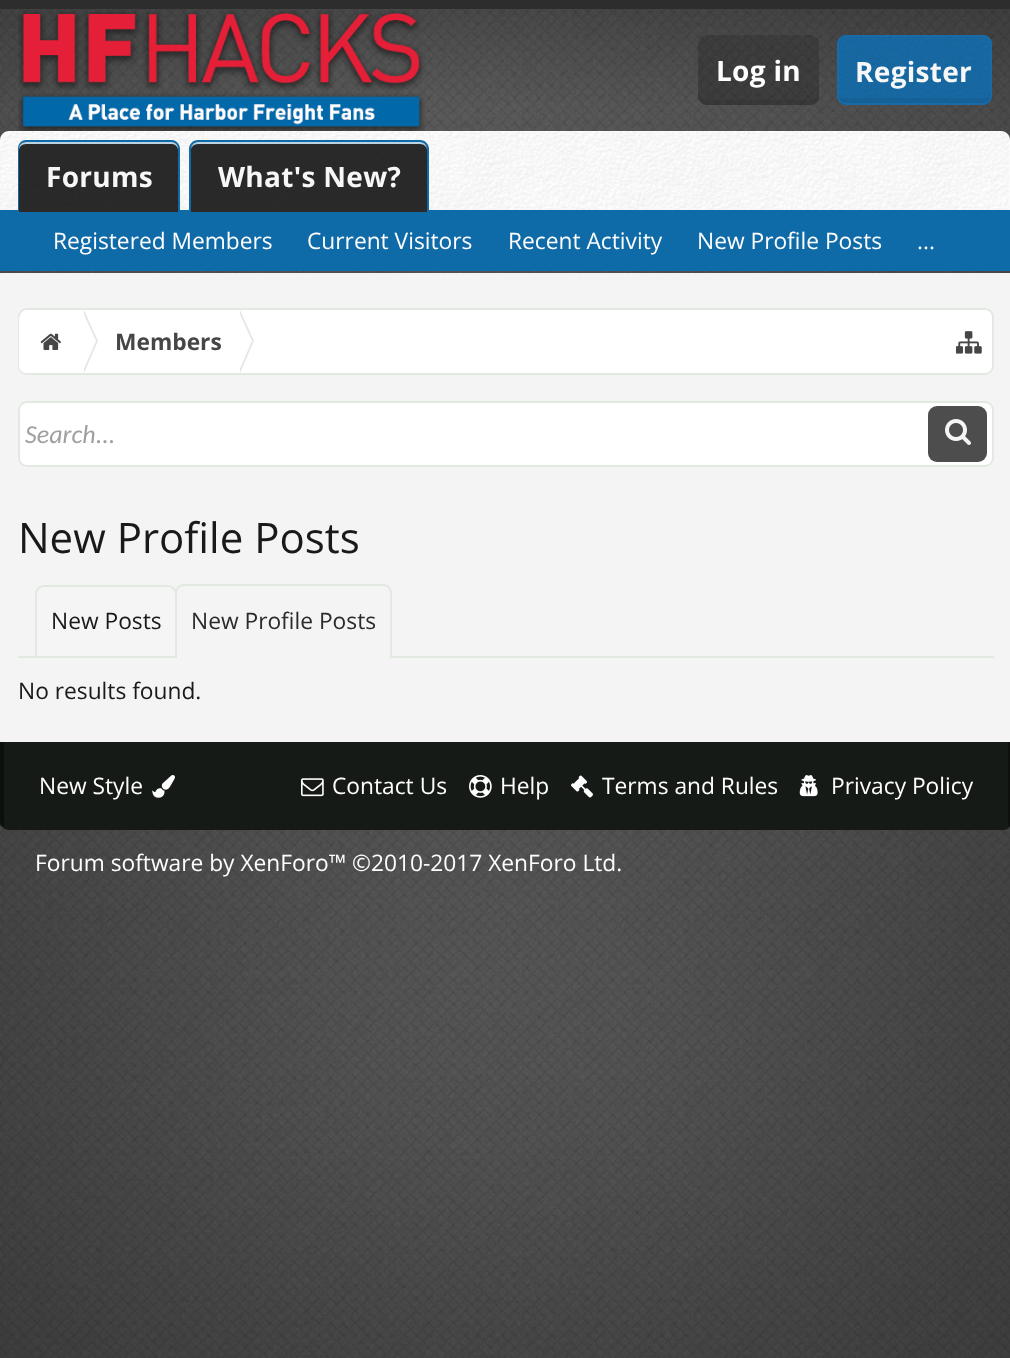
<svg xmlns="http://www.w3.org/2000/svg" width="1010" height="1358">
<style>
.a{font:bold 28px Open Sans;letter-spacing:0.3px;fill:#fefefe}
.b{font:bold 28px Open Sans;letter-spacing:0.3px;fill:#f7f7f7}
.c{font:22.75px Open Sans;fill:#fefefe}
.d{font:bold 22.75px Open Sans;fill:#464646}
.e{font:italic 26px Carlito;fill:#a0a0a0}
.f{font:42px Open Sans;fill:#191919}
.g{font:22.75px Open Sans;fill:#191919}
.h{font:22.75px Open Sans;fill:#2b2b2b}
</style>
<defs>
<clipPath id="clip1"><rect x="19" y="310" width="973" height="63" rx="7"/></clipPath>
</defs>
<rect width="100%" height="100%" fill="#fff"/>
<image href="1.png" x="0" y="9" width="1010" height="1349"/>
<image href="2.png" x="0" y="9" width="1010" height="1349"/>
<path fill="#2d2d2d" d="M0 0h1010v9H0z"/>
<image href="3.png" x="18" y="11" width="407" height="120"/>
<path fill="#fff" d="M9 131h992c5 0 9 4 9 9v70h-1010v-70c0-5 4-9 9-9z"/>
<image href="4.png" x="0" y="131" width="1010" height="79"/>
<rect fill="#434343" x="698" y="35" width="121" height="70" rx="9"/>
<image href="5.png" x="698" y="35" width="121" height="70"/>
<path fill="#0000000f" d="M698 91v5c0 5 4 9 9 9h103c5 0 9-4 9-9v-5c0 5-4 9-9 9h-103c-5 0-9-4-9-9z"/>
<rect fill="#186ba6" x="837" y="35" width="155" height="70" rx="9"/>
<image href="6.png" x="837" y="35" width="155" height="70"/>
<path fill="#0000000f" d="M838 91v5c0 4 3 7 7 7h139c4 0 7-3 7-7v-52c0-1 0-3-1-4v51c0 4-3 7-6 7h-139c-4 0-7-3-7-7z"/>
<rect fill="none" stroke="#186ba6" stroke-width="2" x="838" y="36" width="153" height="68" rx="8"/>
<path fill="#0f6aa8" d="M0 210h1010v61H0z"/>
<path fill="#2b2b2b" d="M26 142h146c4 0 7 3 7 7v63h-160v-63c0-4 3-7 7-7z"/>
<image href="7.png" x="18" y="140" width="162" height="71"/>
<path fill="#bbd2e1" d="M26 144h146c3 0 6 3 6 6v62h1v-63c0-4-3-7-7-7h-146c-4 0-7 3-7 7v1c0-3 3-6 7-6z"/>
<path fill="#0f6aa8" fill-rule="evenodd" d="M26 140h146c4 0 8 4 8 9v63h-162v-63c0-5 3-9 8-9zm0 2h146c3 0 6 3 6 7v63h-159v-63c0-4 3-7 7-7z"/>
<path fill="#2b2b2b" d="M198 142h222c4 0 7 3 7 7v63h-236v-63c0-4 3-7 7-7z"/>
<image href="8.png" x="189" y="140" width="238" height="71"/>
<path fill="#bbd2e1" d="M198 144h222c4 0 7 3 7 6c0-4-2-7-6-8h-224c-4 1-6 4-6 8c0-3 3-6 7-6z"/>
<path fill="#0f6aa8" fill-rule="evenodd" d="M198 140h222c5 0 9 4 9 9v63h-240v-63c0-5 4-9 9-9zm0 2h222c4 0 7 3 7 7v63h-236v-63c0-4 3-7 7-7z"/>
<path fill="#f4f4f4" d="M0 273h1010v469H0z"/>
<rect fill="#fff" stroke="#e2e9e1" stroke-width="2" x="19" y="309" width="974" height="65" rx="8"/>
<g clip-path="url(#clip1)">
<path fill="#fff" d="M28 310h56v65h-56c-5 0-9-4-9-9v-47c0-5 4-9 9-9z"/>
</g>
<image href="9.png" x="40" y="333" width="21" height="17"/>
<path fill="#e2e9e1" d="M84 373v-63l14 31z"/>
<path fill="#fff" d="M82 373v-63l14 31z"/>
<path fill="#e2e9e1" d="M240 373v-63l14 31z"/>
<path fill="#fff" d="M238 373v-63l14 31z"/>
<image href="10.png" x="956" y="331" width="26" height="23"/>
<rect fill="#fff" stroke="#e2e9e1" stroke-width="2" x="19" y="402" width="974" height="64" rx="8"/>
<rect fill="#4d4d4d" x="928" y="406" width="59" height="56" rx="9"/>
<image href="11.png" x="945" y="419" width="26" height="26"/>
<path fill="#e2e9e1" d="M18 656h976v2H18z"/>
<path fill="#f5f5f5" stroke="#e2e9e1" stroke-width="2" d="M44 586h124c4.5 0 8 3.5 8 8v63h-140v-63c0-4.5 3.5-8 8-8z"/>
<path fill="#f4f4f4" d="M184 585h199c5 0 9 4 9 9v64h-217v-64c0-5 4-9 9-9z"/>
<path fill="#e2e9e1" fill-rule="evenodd" d="M184 584h199c5 0 9 4 9 9v65h-217v-65c0-5 4-9 9-9zm0 2h199c4 0 7 3 7 7v65h-213v-65c0-4 3-7 7-7z"/>
<path fill="#161a16" d="M0 742h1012v79c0 5-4 9-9 9h-994c-5 0-9-4-9-9z"/>
<path fill="#0d100d" d="M1008 742h2v84H1008z"/>
<path fill="#00000066" d="M0 742h4v84H0z"/>
<image href="12.png" x="152" y="775" width="23" height="23"/>
<image href="13.png" x="301" y="778" width="23" height="19"/>
<image href="14.png" x="469" y="775" width="23" height="23"/>
<image href="15.png" x="571" y="775" width="22" height="23"/>
<image href="16.png" x="799" y="775" width="19" height="22"/>
<text class="a" x="716" y="81">Log in</text>
<text class="b" x="855" y="82">Register</text>
<text class="b" x="46" y="187">Forums</text>
<text class="b" x="218" y="187">What's New?</text>
<text class="c" x="53" y="249">Registered Members</text>
<text class="c" x="307" y="249">Current Visitors</text>
<text class="c" x="508" y="249">Recent Activity</text>
<text class="c" x="697" y="249">New Profile Posts</text>
<text class="c" x="917" y="249">...</text>
<text class="d" x="115" y="350">Members</text>
<text class="e" x="25" y="443">Search...</text>
<text class="f" x="18" y="553">New Profile Posts</text>
<text class="g" x="51" y="629">New Posts</text>
<text class="h" x="191" y="629">New Profile Posts</text>
<text class="g" x="18" y="699">No results found.</text>
<text class="c" x="39" y="794">New Style</text>
<text class="c" x="332" y="794">Contact Us</text>
<text class="c" x="500" y="794">Help</text>
<text class="c" x="602" y="794">Terms and Rules</text>
<text class="c" x="831" y="794">Privacy Policy</text>
<text class="c" x="35" y="871">Forum software by XenForo™ ©2010-2017 XenForo Ltd.</text>
</svg>
